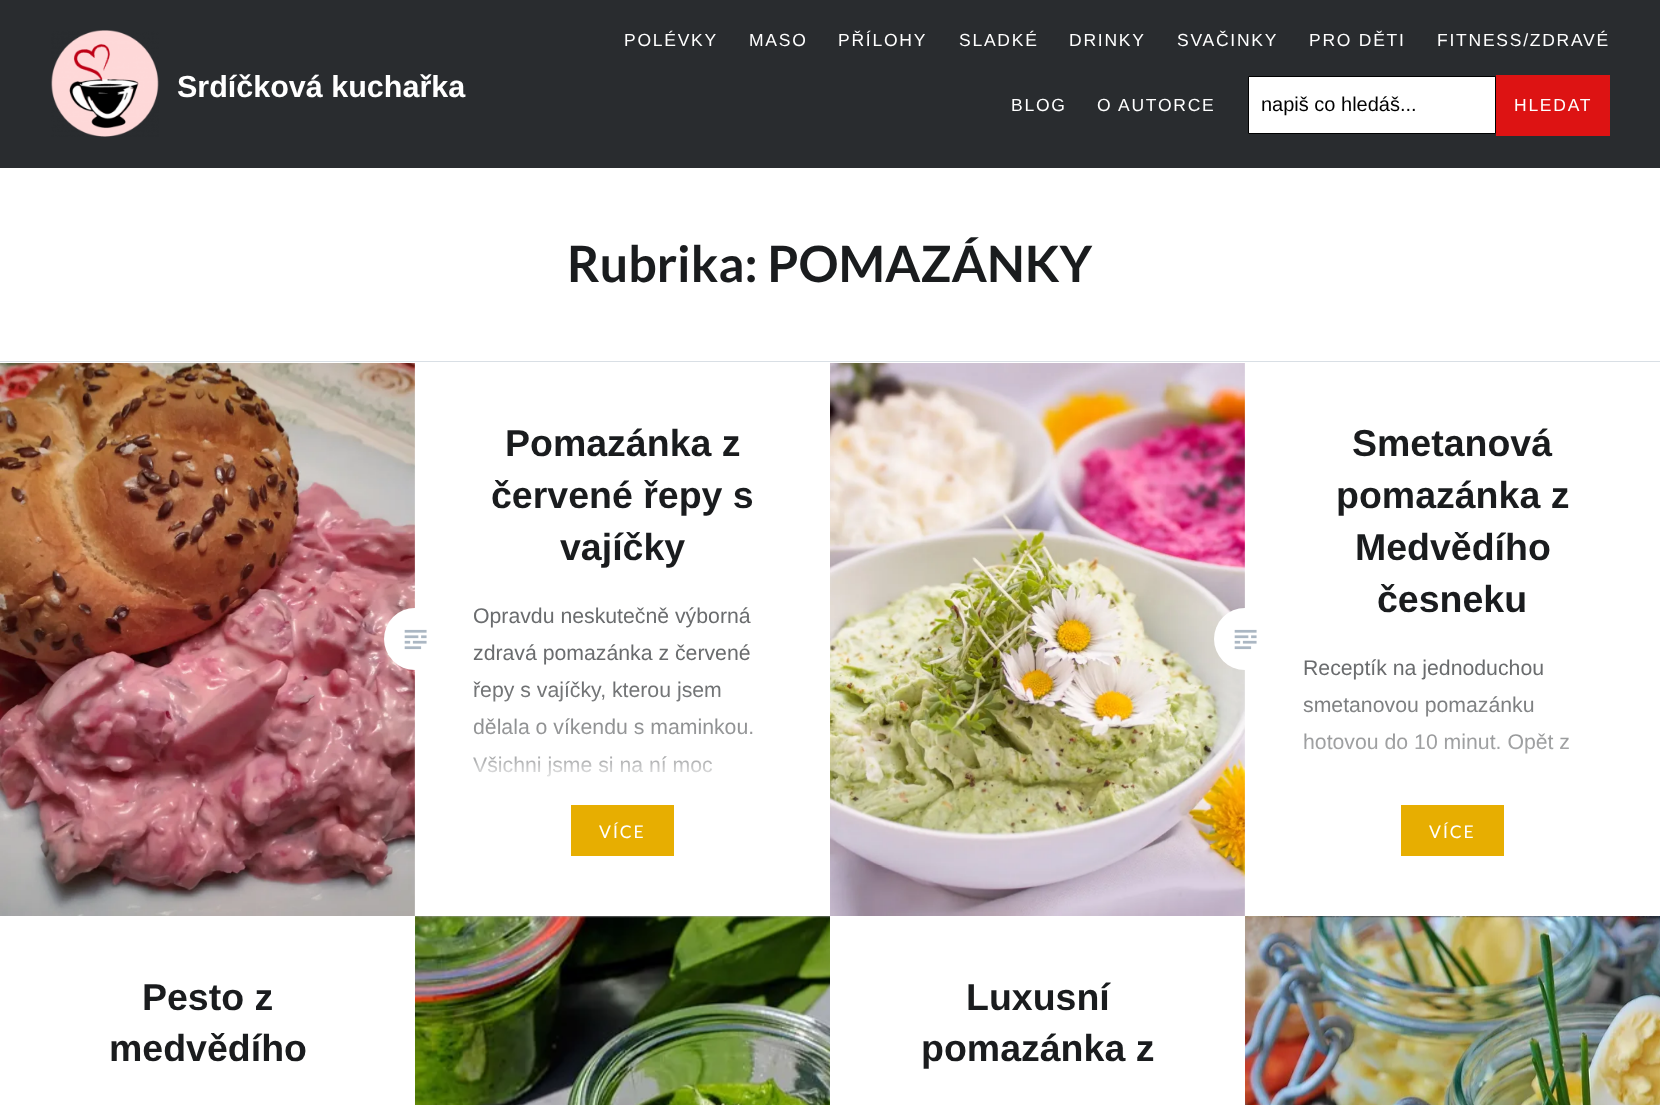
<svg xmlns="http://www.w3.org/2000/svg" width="1660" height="1105">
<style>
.a{font:bold 30.5px Liberation Sans;fill:#fff}
.b{font:17.5px Liberation Sans;letter-spacing:1.75px;fill:#fff}
.c{font:20px Liberation Sans;fill:#000}
.d{font:bold 50px Lato;fill:#1a1c1e}
.e{font:bold 37.5px Liberation Sans;fill:#1a1c1e}
.f{font:21.25px Liberation Sans;fill:#6a6c6e}
.g{font:17.5px Lato;letter-spacing:1.75px;fill:#fff}
</style>
<defs>
<linearGradient id="g1" gradientUnits="userSpaceOnUse" x1="623" y1="681" x2="623" y2="856"><stop offset="0" stop-color="#fff" stop-opacity="0"/><stop offset="1" stop-color="#fff"/></linearGradient>
<linearGradient id="g2" gradientUnits="userSpaceOnUse" x1="623" y1="760" x2="623" y2="788"><stop offset="0" stop-color="#fff" stop-opacity="0"/><stop offset="1" stop-color="#fff"/></linearGradient>
<linearGradient id="g3" gradientUnits="userSpaceOnUse" x1="1453" y1="681" x2="1453" y2="856"><stop offset="0" stop-color="#fff" stop-opacity="0"/><stop offset="1" stop-color="#fff"/></linearGradient>
</defs>
<rect width="100%" height="100%" fill="#fff"/>
<path fill="#292c2f" d="M0 0h1660v168H0z"/>
<image href="1.png" x="51" y="30" width="108" height="107"/>
<path fill="#fff" stroke="#000" d="M1248.5 76.5h247v57H1248.5z"/>
<path fill="#dd1313" d="M1496 75h114v61H1496z"/>
<path fill="#d9dfe5" d="M0 361h1660v1H0z"/>
<image href="2.png" x="0" y="363" width="415" height="553"/>
<circle fill="#fff" cx="415" cy="639" r="31"/>
<path fill="#e7ae01" d="M571 805h103v51H571z"/>
<image href="3.png" x="404" y="629" width="23" height="21"/>
<image href="4.png" x="830" y="363" width="415" height="553"/>
<circle fill="#fff" cx="1245" cy="639" r="31"/>
<path fill="#e7ae01" d="M1401 805h103v51H1401z"/>
<image href="3.png" x="1234" y="629" width="23" height="21"/>
<image href="5.png" x="415" y="916" width="415" height="189"/>
<image href="6.png" x="1245" y="916" width="415" height="189"/>
<text class="a" x="177" y="97">Srdíčková kuchařka</text>
<text class="b" x="624" y="46">POLÉVKY</text>
<text class="b" x="749" y="46">MASO</text>
<text class="b" x="838" y="46">PŘÍLOHY</text>
<text class="b" x="959" y="46">SLADKÉ</text>
<text class="b" x="1069" y="46">DRINKY</text>
<text class="b" x="1177" y="46">SVAČINKY</text>
<text class="b" x="1309" y="46">PRO DĚTI</text>
<text class="b" x="1437" y="46">FITNESS/ZDRAVÉ</text>
<text class="b" x="1011" y="111">BLOG</text>
<text class="b" x="1097" y="111">O AUTORCE</text>
<text class="c" x="1261" y="111">napiš co hledáš...</text>
<text class="b" x="1514" y="111">HLEDAT</text>
<text class="d" x="567" y="282">Rubrika: POMAZÁNKY</text>
<text class="e" x="505" y="456">Pomazánka z</text>
<text class="e" x="491" y="508">červené řepy s</text>
<text class="e" x="560" y="560">vajíčky</text>
<text class="f" x="473" y="623">Opravdu neskutečně výborná</text>
<text class="f" x="473" y="660">zdravá pomazánka z červené</text>
<text class="f" x="473" y="697">řepy s vajíčky, kterou jsem</text>
<text class="f" x="473" y="734">dělala o víkendu s maminkou.</text>
<text class="f" x="473" y="772">Všichni jsme si na ní moc</text>
<text class="g" x="599" y="838">VÍCE</text>
<path fill="url(#g1)" d="M473 685h280v92H473z"/>
<path fill="url(#g2)" d="M475 761h237v16H475z"/>
<text class="e" x="1352" y="456">Smetanová</text>
<text class="e" x="1336" y="508">pomazánka z</text>
<text class="e" x="1355" y="560">Medvědího</text>
<text class="e" x="1377" y="612">česneku</text>
<text class="f" x="1303" y="675">Receptík na jednoduchou</text>
<text class="f" x="1303" y="712">smetanovou pomazánku</text>
<text class="f" x="1303" y="749">hotovou do 10 minut. Opět z</text>
<text class="g" x="1429" y="838">VÍCE</text>
<path fill="url(#g3)" d="M1303 696h266v58H1303z"/>
<text class="e" x="142" y="1010">Pesto z</text>
<text class="e" x="109" y="1061">medvědího</text>
<text class="e" x="966" y="1010">Luxusní</text>
<text class="e" x="921" y="1061">pomazánka z</text>
</svg>
